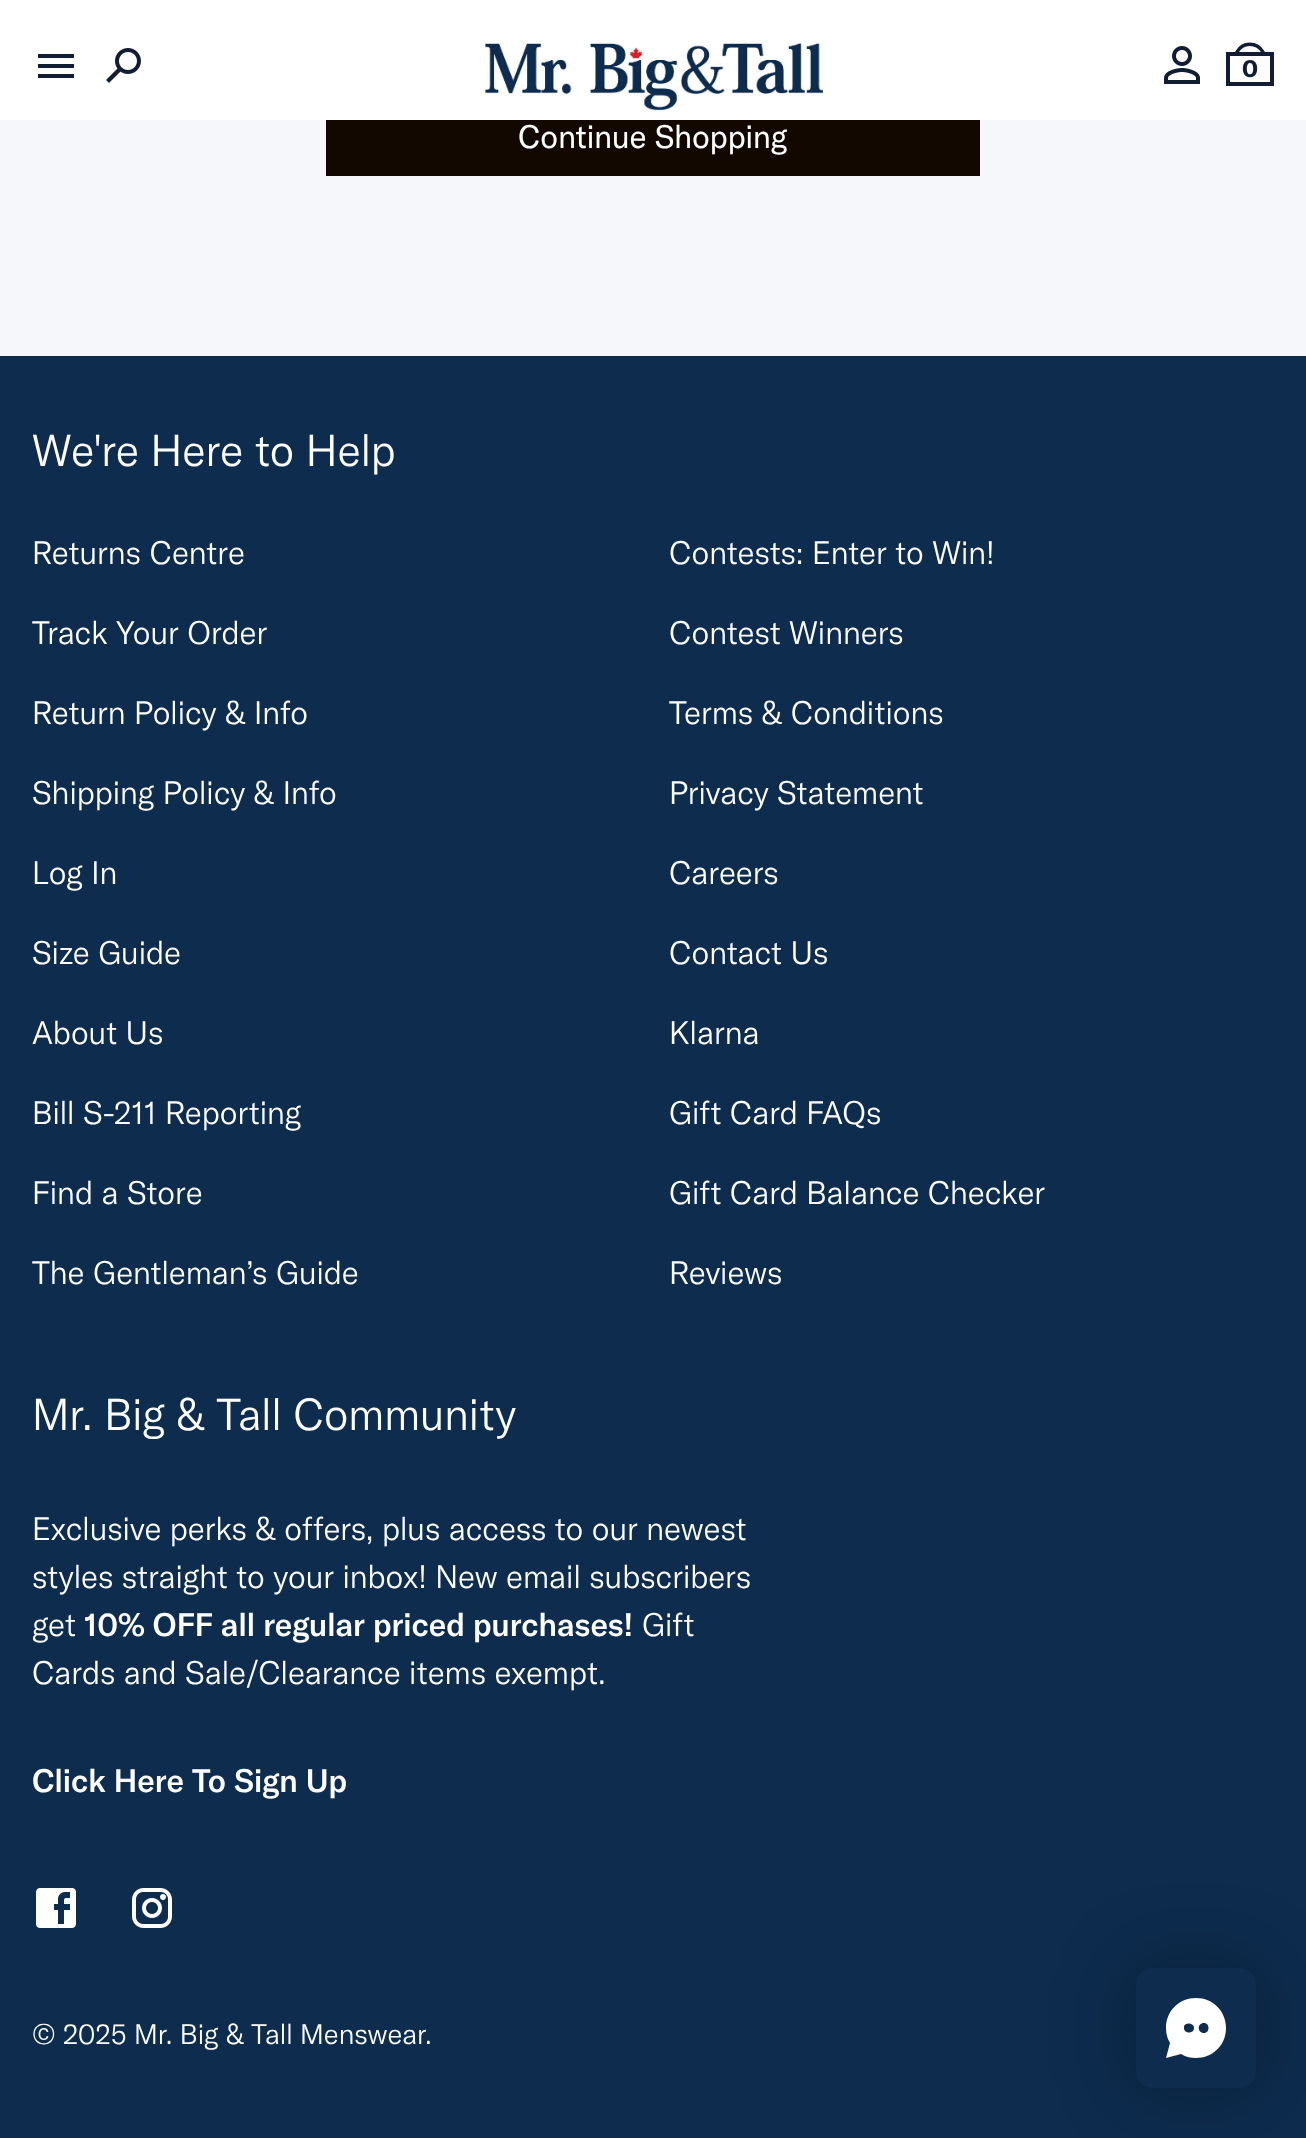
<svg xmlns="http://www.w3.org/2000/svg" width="1306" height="2138">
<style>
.a{font:bold 24px GT America;fill:#121d33}
.b{font:32px GT America;fill:#fff}
.c{font:300 44px GT America;fill:#fff}
.d{font:300 32px GT America;fill:#fff}
.e{font:500 32px GT America;fill:#fff}
.f{font:300 28px GT America;fill:#fff}
</style>
<rect width="100%" height="100%" fill="#0d2c4e"/>
<path fill="#fff" d="M0 0h1306v120H0z"/>
<path fill="#121d33" fill-rule="evenodd" d="M38 58v-4h36v4zm0 10h36v-4h-36zm0 10h36v-4h-36z"/>
<image href="1.png" x="106" y="48" width="35" height="35"/>
<image href="2.png" x="485" y="42" width="338" height="69"/>
<image href="3.png" x="1164" y="46" width="36" height="38"/>
<path fill="none" stroke="#121d33" stroke-width="4" d="M1228 54h44v30H1228z"/>
<path fill="none" stroke="#121d33" stroke-width="3.5" stroke-linecap="square" d="M1237 52c5.5-10.5 20-10.5 26 0"/>
<path fill="#f6f7fb" d="M0 120h1306v236H0z"/>
<path fill="#120800" d="M326 120h654v56H326z"/>
<image href="4.png" x="36" y="1888" width="40" height="40"/>
<image href="5.png" x="132" y="1888" width="40" height="40"/>
<rect fill="#0000004d" filter="blur(40px)" x="1136" y="1968" width="120" height="120" rx="16"/>
<rect fill="#0e2c4e" x="1136" y="1968" width="120" height="120" rx="16"/>
<path fill="#fff" fill-rule="evenodd" d="M1196 2058c17 0 30-13 30-30c0-17-13-30-30-30c-17 0-30 13-30 30c0 5 1 10 4 15l-4 15l15-4c5 3 10 4 15 4zm-2-30c0 6-10 6-10 0c-1-6 10-6 10 0zm10 5c6 0 6-10 0-10c-7 0-7 10 0 10z"/>
<text class="a" x="1242" y="77">0</text>
<text class="b" x="518" y="148">Continue Shopping</text>
<text class="c" x="32" y="466">We're Here to Help</text>
<text class="d" x="32" y="564">Returns Centre</text>
<text class="d" x="669" y="564">Contests: Enter to Win!</text>
<text class="d" x="32" y="644">Track Your Order</text>
<text class="d" x="669" y="644">Contest Winners</text>
<text class="d" x="32" y="724">Return Policy &amp; Info</text>
<text class="d" x="669" y="724">Terms &amp; Conditions</text>
<text class="d" x="32" y="804">Shipping Policy &amp; Info</text>
<text class="d" x="669" y="804">Privacy Statement</text>
<text class="d" x="32" y="884">Log In</text>
<text class="d" x="669" y="884">Careers</text>
<text class="d" x="32" y="964">Size Guide</text>
<text class="d" x="669" y="964">Contact Us</text>
<text class="d" x="32" y="1044">About Us</text>
<text class="d" x="669" y="1044">Klarna</text>
<text class="d" x="32" y="1124">Bill S-211 Reporting</text>
<text class="d" x="669" y="1124">Gift Card FAQs</text>
<text class="d" x="32" y="1204">Find a Store</text>
<text class="d" x="669" y="1204">Gift Card Balance Checker</text>
<text class="d" x="32" y="1284">The Gentleman’s Guide</text>
<text class="d" x="669" y="1284">Reviews</text>
<text class="c" x="32" y="1430">Mr. Big &amp; Tall Community</text>
<text class="d" x="32" y="1540">Exclusive perks &amp; offers, plus access to our newest</text>
<text class="d" x="32" y="1588">styles straight to your inbox! New email subscribers</text>
<text class="d" x="32" y="1636">get</text>
<text class="e" x="84" y="1636">10% OFF all regular priced purchases!</text>
<text class="d" x="642" y="1636">Gift</text>
<text class="d" x="32" y="1684">Cards and Sale/Clearance items exempt.</text>
<text class="e" x="32" y="1792">Click Here To Sign Up</text>
<text class="f" x="32" y="2044">© 2025 Mr. Big &amp; Tall Menswear.</text>
</svg>
